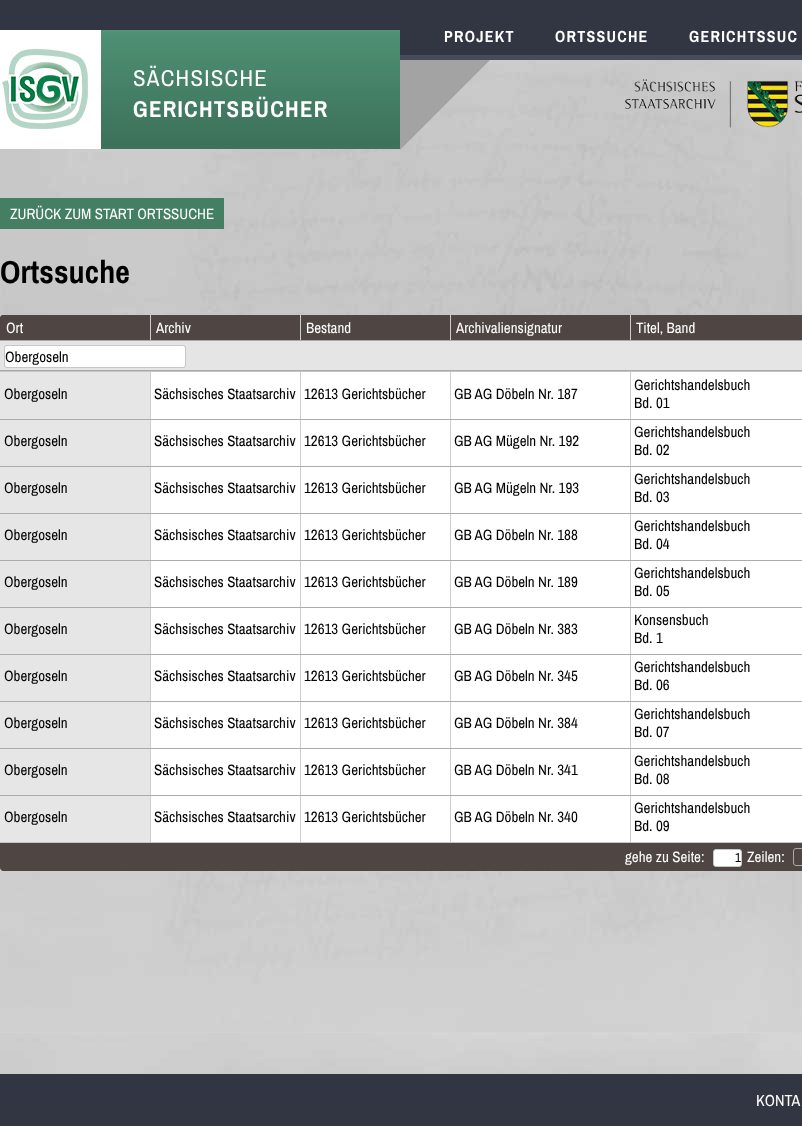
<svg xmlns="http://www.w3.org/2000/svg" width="802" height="1126">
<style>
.a{font:bold 16px Archivo Narrow;letter-spacing:1.25px;fill:#fff}
.b{font:23px Archivo Narrow;letter-spacing:1.25px;fill:#fff}
.c{font:bold 23px Archivo Narrow;letter-spacing:1.25px;fill:#fff}
.d{font:15px Archivo Narrow;fill:#fff}
.e{font:bold 32px Archivo Narrow;fill:#000}
.f{font:15px Archivo Narrow;fill:#000}
.g{font:13px Archivo Narrow;fill:#000}
.h{font:16px Archivo Narrow;fill:#fff}
</style>
<rect width="100%" height="100%" fill="#fff"/>
<image href="1.png" x="0" y="60" width="802" height="1014"/>
<path fill="#323642" d="M0 0h802v55H0z"/>
<path fill="#464c58" d="M400 55h402v5H400z"/>
<path fill="#fff" d="M0 30h101v119H0z"/>
<image href="2.png" x="625" y="79" width="177" height="49"/>
<image href="3.png" x="2" y="49" width="86" height="80"/>
<image href="4.png" x="101" y="30" width="299" height="119"/>
<image href="5.png" x="400" y="60" width="90" height="90"/>
<path fill="#447f64" d="M0 198h224v31H0z"/>
<rect fill="#fff" y="315" width="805" height="556" rx="3"/>
<path fill="#4f4542" d="M3 315h799c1.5 0 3 1.5 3 3v53h-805v-53c0-1.5 1.5-3 3-3z"/>
<path fill="#c5c5c5" d="M0 371h802v1H0z"/>
<path fill="#4f4542" d="M3 315h147v25h-150v-22c0-1.5 1.5-3 3-3z"/>
<path fill="#ccc" d="M150 315h1v25H150z"/>
<path fill="#ccc" d="M300 315h1v25H300z"/>
<path fill="#ccc" d="M450 315h1v25H450z"/>
<path fill="#ccc" d="M630 315h1v25H630z"/>
<path fill="#e5e5e5" d="M0 341h802v29H0z"/>
<path fill="#aaa" d="M0 340h802v1H0z"/>
<path fill="#aaa" d="M0 370h802v1H0z"/>
<rect fill="none" stroke="#c7c7c7" x="4.5" y="345.5" width="181" height="22" rx="2.5"/>
<path fill="#e6e6e6" d="M0 372h150v47H0z"/>
<path fill="#cdcdcd" d="M630 795h1v47H630z"/>
<path fill="#ababab" d="M630 795h172v1H630z"/>
<path fill="#cdcdcd" d="M630 748h1v48H630z"/>
<path fill="#ababab" d="M630 748h172v1H630z"/>
<path fill="#cdcdcd" d="M630 701h1v48H630z"/>
<path fill="#ababab" d="M630 701h172v1H630z"/>
<path fill="#cdcdcd" d="M630 654h1v48H630z"/>
<path fill="#ababab" d="M630 654h172v1H630z"/>
<path fill="#cdcdcd" d="M630 607h1v48H630z"/>
<path fill="#ababab" d="M630 607h172v1H630z"/>
<path fill="#cdcdcd" d="M630 560h1v48H630z"/>
<path fill="#ababab" d="M630 560h172v1H630z"/>
<path fill="#cdcdcd" d="M630 513h1v48H630z"/>
<path fill="#ababab" d="M630 513h172v1H630z"/>
<path fill="#cdcdcd" d="M630 466h1v48H630z"/>
<path fill="#ababab" d="M630 466h172v1H630z"/>
<path fill="#cdcdcd" d="M630 419h1v48H630z"/>
<path fill="#ababab" d="M630 419h172v1H630z"/>
<path fill="#cdcdcd" d="M630 372h1v48H630z"/>
<path fill="#cdcdcd" d="M450 795h1v47H450z"/>
<path fill="#ababab" d="M450 795h181v1H450z"/>
<path fill="#cdcdcd" d="M450 748h1v48H450z"/>
<path fill="#ababab" d="M450 748h181v1H450z"/>
<path fill="#cdcdcd" d="M450 701h1v48H450z"/>
<path fill="#ababab" d="M450 701h181v1H450z"/>
<path fill="#cdcdcd" d="M450 654h1v48H450z"/>
<path fill="#ababab" d="M450 654h181v1H450z"/>
<path fill="#cdcdcd" d="M450 607h1v48H450z"/>
<path fill="#ababab" d="M450 607h181v1H450z"/>
<path fill="#cdcdcd" d="M450 560h1v48H450z"/>
<path fill="#ababab" d="M450 560h181v1H450z"/>
<path fill="#cdcdcd" d="M450 513h1v48H450z"/>
<path fill="#ababab" d="M450 513h181v1H450z"/>
<path fill="#cdcdcd" d="M450 466h1v48H450z"/>
<path fill="#ababab" d="M450 466h181v1H450z"/>
<path fill="#cdcdcd" d="M450 419h1v48H450z"/>
<path fill="#ababab" d="M450 419h181v1H450z"/>
<path fill="#cdcdcd" d="M450 372h1v48H450z"/>
<path fill="#cdcdcd" d="M300 795h1v47H300z"/>
<path fill="#ababab" d="M300 795h151v1H300z"/>
<path fill="#cdcdcd" d="M300 748h1v48H300z"/>
<path fill="#ababab" d="M300 748h151v1H300z"/>
<path fill="#cdcdcd" d="M300 701h1v48H300z"/>
<path fill="#ababab" d="M300 701h151v1H300z"/>
<path fill="#cdcdcd" d="M300 654h1v48H300z"/>
<path fill="#ababab" d="M300 654h151v1H300z"/>
<path fill="#cdcdcd" d="M300 607h1v48H300z"/>
<path fill="#ababab" d="M300 607h151v1H300z"/>
<path fill="#cdcdcd" d="M300 560h1v48H300z"/>
<path fill="#ababab" d="M300 560h151v1H300z"/>
<path fill="#cdcdcd" d="M300 513h1v48H300z"/>
<path fill="#ababab" d="M300 513h151v1H300z"/>
<path fill="#cdcdcd" d="M300 466h1v48H300z"/>
<path fill="#ababab" d="M300 466h151v1H300z"/>
<path fill="#cdcdcd" d="M300 419h1v48H300z"/>
<path fill="#ababab" d="M300 419h151v1H300z"/>
<path fill="#cdcdcd" d="M300 372h1v48H300z"/>
<path fill="#cdcdcd" d="M150 795h1v47H150z"/>
<path fill="#ababab" d="M150 795h151v1H150z"/>
<path fill="#cdcdcd" d="M150 748h1v48H150z"/>
<path fill="#ababab" d="M150 748h151v1H150z"/>
<path fill="#cdcdcd" d="M150 701h1v48H150z"/>
<path fill="#ababab" d="M150 701h151v1H150z"/>
<path fill="#cdcdcd" d="M150 654h1v48H150z"/>
<path fill="#ababab" d="M150 654h151v1H150z"/>
<path fill="#cdcdcd" d="M150 607h1v48H150z"/>
<path fill="#ababab" d="M150 607h151v1H150z"/>
<path fill="#cdcdcd" d="M150 560h1v48H150z"/>
<path fill="#ababab" d="M150 560h151v1H150z"/>
<path fill="#cdcdcd" d="M150 513h1v48H150z"/>
<path fill="#ababab" d="M150 513h151v1H150z"/>
<path fill="#cdcdcd" d="M150 466h1v48H150z"/>
<path fill="#ababab" d="M150 466h151v1H150z"/>
<path fill="#cdcdcd" d="M150 419h1v48H150z"/>
<path fill="#ababab" d="M150 419h151v1H150z"/>
<path fill="#cdcdcd" d="M150 372h1v48H150z"/>
<path fill="#ababab" d="M0 419h151v1H0z"/>
<path fill="#e6e6e6" d="M0 420h150v46H0z"/>
<path fill="#ababab" d="M0 466h151v1H0z"/>
<path fill="#e6e6e6" d="M0 467h150v46H0z"/>
<path fill="#ababab" d="M0 513h151v1H0z"/>
<path fill="#e6e6e6" d="M0 514h150v46H0z"/>
<path fill="#ababab" d="M0 560h151v1H0z"/>
<path fill="#e6e6e6" d="M0 561h150v46H0z"/>
<path fill="#ababab" d="M0 607h151v1H0z"/>
<path fill="#e6e6e6" d="M0 608h150v46H0z"/>
<path fill="#ababab" d="M0 654h151v1H0z"/>
<path fill="#e6e6e6" d="M0 655h150v46H0z"/>
<path fill="#ababab" d="M0 701h151v1H0z"/>
<path fill="#e6e6e6" d="M0 702h150v46H0z"/>
<path fill="#ababab" d="M0 748h151v1H0z"/>
<path fill="#e6e6e6" d="M0 749h150v46H0z"/>
<path fill="#ababab" d="M0 795h151v1H0z"/>
<path fill="#e6e6e6" d="M0 796h150v46H0z"/>
<path fill="#4f4542" d="M0 842h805v26c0 1.5-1.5 3-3 3h-799c-1.5 0-3-1.5-3-3z"/>
<path fill="#c5c5c5" d="M0 842h802v1H0z"/>
<rect fill="#fff" stroke="#c7c7c7" x="713.5" y="849.5" width="28" height="17" rx="2.5"/>
<rect fill="none" stroke="#aaa" x="793.5" y="848.5" width="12" height="17" rx="2.5"/>
<rect fill="#fff" stroke="#c7c7c7" x="4.5" y="345.5" width="181" height="22" rx="2.5"/>
<path fill="#313642" d="M0 1074h802v52H0z"/>
<text class="a" x="444" y="42">PROJEKT</text>
<text class="a" x="555" y="42">ORTSSUCHE</text>
<text class="a" x="689" y="42">GERICHTSSUC</text>
<text class="b" x="133" y="86">SÄCHSISCHE</text>
<text class="c" x="133" y="117">GERICHTSBÜCHER</text>
<text class="d" x="10" y="219">ZURÜCK ZUM START ORTSSUCHE</text>
<text class="e" x="0" y="283">Ortssuche</text>
<text class="d" x="6" y="333">Ort</text>
<text class="d" x="156" y="333">Archiv</text>
<text class="d" x="306" y="333">Bestand</text>
<text class="d" x="456" y="333">Archivaliensignatur</text>
<text class="d" x="636" y="333">Titel, Band</text>
<text class="f" x="4" y="399">Obergoseln</text>
<text class="f" x="154" y="399">Sächsisches Staatsarchiv</text>
<text class="f" x="304" y="399">12613 Gerichtsbücher</text>
<text class="f" x="454" y="399">GB AG Döbeln Nr. 187</text>
<text class="f" x="634" y="390">Gerichtshandelsbuch</text>
<text class="f" x="634" y="408">Bd. 01</text>
<text class="f" x="4" y="446">Obergoseln</text>
<text class="f" x="154" y="446">Sächsisches Staatsarchiv</text>
<text class="f" x="304" y="446">12613 Gerichtsbücher</text>
<text class="f" x="454" y="446">GB AG Mügeln Nr. 192</text>
<text class="f" x="634" y="437">Gerichtshandelsbuch</text>
<text class="f" x="634" y="455">Bd. 02</text>
<text class="f" x="4" y="493">Obergoseln</text>
<text class="f" x="154" y="493">Sächsisches Staatsarchiv</text>
<text class="f" x="304" y="493">12613 Gerichtsbücher</text>
<text class="f" x="454" y="493">GB AG Mügeln Nr. 193</text>
<text class="f" x="634" y="484">Gerichtshandelsbuch</text>
<text class="f" x="634" y="502">Bd. 03</text>
<text class="f" x="4" y="540">Obergoseln</text>
<text class="f" x="154" y="540">Sächsisches Staatsarchiv</text>
<text class="f" x="304" y="540">12613 Gerichtsbücher</text>
<text class="f" x="454" y="540">GB AG Döbeln Nr. 188</text>
<text class="f" x="634" y="531">Gerichtshandelsbuch</text>
<text class="f" x="634" y="549">Bd. 04</text>
<text class="f" x="4" y="587">Obergoseln</text>
<text class="f" x="154" y="587">Sächsisches Staatsarchiv</text>
<text class="f" x="304" y="587">12613 Gerichtsbücher</text>
<text class="f" x="454" y="587">GB AG Döbeln Nr. 189</text>
<text class="f" x="634" y="578">Gerichtshandelsbuch</text>
<text class="f" x="634" y="596">Bd. 05</text>
<text class="f" x="4" y="634">Obergoseln</text>
<text class="f" x="154" y="634">Sächsisches Staatsarchiv</text>
<text class="f" x="304" y="634">12613 Gerichtsbücher</text>
<text class="f" x="454" y="634">GB AG Döbeln Nr. 383</text>
<text class="f" x="634" y="625">Konsensbuch</text>
<text class="f" x="634" y="643">Bd. 1</text>
<text class="f" x="4" y="681">Obergoseln</text>
<text class="f" x="154" y="681">Sächsisches Staatsarchiv</text>
<text class="f" x="304" y="681">12613 Gerichtsbücher</text>
<text class="f" x="454" y="681">GB AG Döbeln Nr. 345</text>
<text class="f" x="634" y="672">Gerichtshandelsbuch</text>
<text class="f" x="634" y="690">Bd. 06</text>
<text class="f" x="4" y="728">Obergoseln</text>
<text class="f" x="154" y="728">Sächsisches Staatsarchiv</text>
<text class="f" x="304" y="728">12613 Gerichtsbücher</text>
<text class="f" x="454" y="728">GB AG Döbeln Nr. 384</text>
<text class="f" x="634" y="719">Gerichtshandelsbuch</text>
<text class="f" x="634" y="737">Bd. 07</text>
<text class="f" x="4" y="775">Obergoseln</text>
<text class="f" x="154" y="775">Sächsisches Staatsarchiv</text>
<text class="f" x="304" y="775">12613 Gerichtsbücher</text>
<text class="f" x="454" y="775">GB AG Döbeln Nr. 341</text>
<text class="f" x="634" y="766">Gerichtshandelsbuch</text>
<text class="f" x="634" y="784">Bd. 08</text>
<text class="f" x="4" y="822">Obergoseln</text>
<text class="f" x="154" y="822">Sächsisches Staatsarchiv</text>
<text class="f" x="304" y="822">12613 Gerichtsbücher</text>
<text class="f" x="454" y="822">GB AG Döbeln Nr. 340</text>
<text class="f" x="634" y="813">Gerichtshandelsbuch</text>
<text class="f" x="634" y="831">Bd. 09</text>
<text class="d" x="625" y="862">gehe zu Seite:</text>
<text class="g" x="735" y="862">1</text>
<text class="d" x="747" y="862">Zeilen:</text>
<text class="f" x="5" y="362">Obergoseln</text>
<text class="h" x="756" y="1106">KONTA</text>
</svg>
